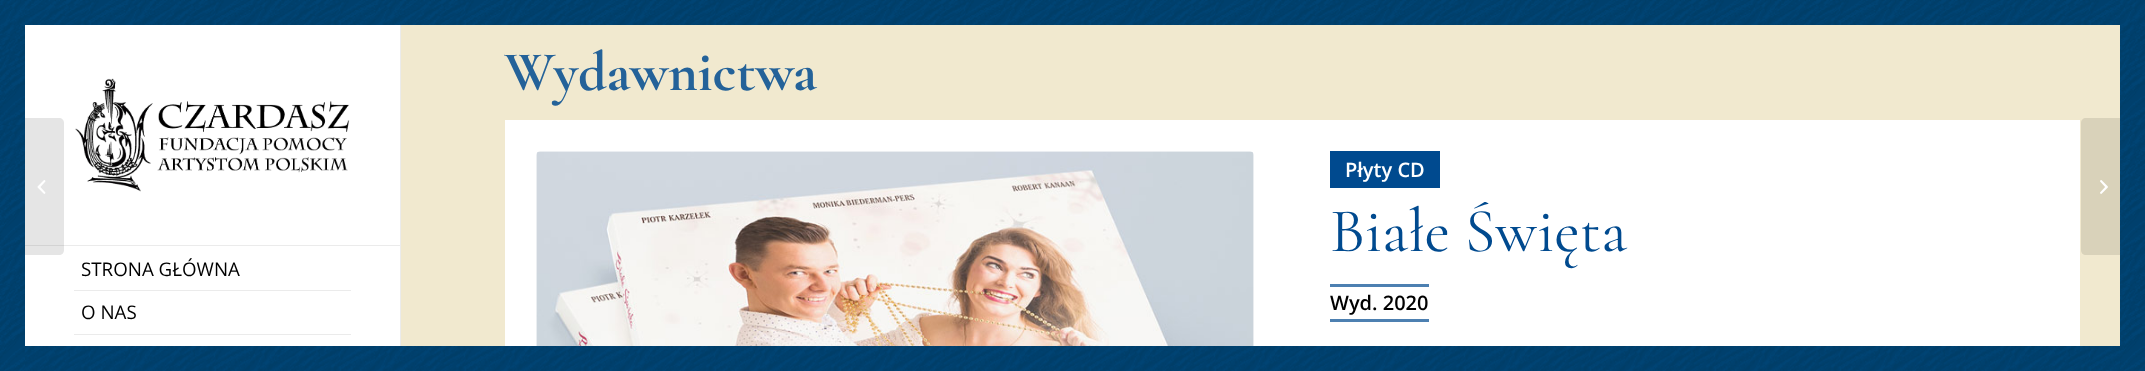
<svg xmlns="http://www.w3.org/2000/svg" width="2145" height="371">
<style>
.a{font:bold 56.25px Cormorant Garamond;fill:#246299}
.b{font:600 20px Open Sans;fill:#fff}
.c{font:62.5px Cormorant Garamond;fill:#004a8f}
.d{font:600 20px Open Sans;fill:#000}
.e{font:18.75px Open Sans;fill:#000}
</style>
<rect width="100%" height="100%" fill="#fff"/>
<image href="1.png" x="0" y="0" width="2120" height="25"/>
<image href="2.png" x="2120" y="0" width="25" height="371"/>
<image href="3.png" x="0" y="25" width="25" height="346"/>
<path fill="#ebebeb" d="M25 245h375v1H25z"/>
<path fill="#0000001a" d="M25 118h34c3 0 5 2 5 5v127c0 3-2 5-5 5h-34z"/>
<image href="4.png" x="37" y="180" width="9" height="14"/>
<path fill="#ebebeb" d="M400 25h1v321H400z"/>
<path fill="#f1e9cf" d="M401 25h1719v321H401z"/>
<path fill="#fff" d="M505 120h1575v226H505z"/>
<image href="5.png" x="536" y="151" width="718" height="195"/>
<path fill="#004a8f" d="M1330 151h110v37H1330z"/>
<path fill="#4d80b1" d="M1330 284h99v3H1330z"/>
<path fill="#4d80b1" d="M1330 319h99v3H1330z"/>
<path fill="#d9d2ba" d="M2086 118h34v137h-34c-3 0-5-2-5-5v-127c0-3 2-5 5-5z"/>
<image href="6.png" x="2100" y="180" width="8" height="14"/>
<image href="7.png" x="75" y="78" width="275" height="114"/>
<path fill="#ebebeb" d="M74 290h277v1H74z"/>
<path fill="#ebebeb" d="M74 334h277v1H74z"/>
<image href="8.png" x="25" y="346" width="2095" height="25"/>
<text class="a" x="504" y="90">Wydawnictwa</text>
<text class="b" x="1345" y="177">Płyty CD</text>
<text class="c" x="1330" y="251">Białe Święta</text>
<text class="d" x="1330" y="310">Wyd. 2020</text>
<text class="e" x="81" y="276">STRONA GŁÓWNA</text>
<text class="e" x="81" y="319">O NAS</text>
</svg>
